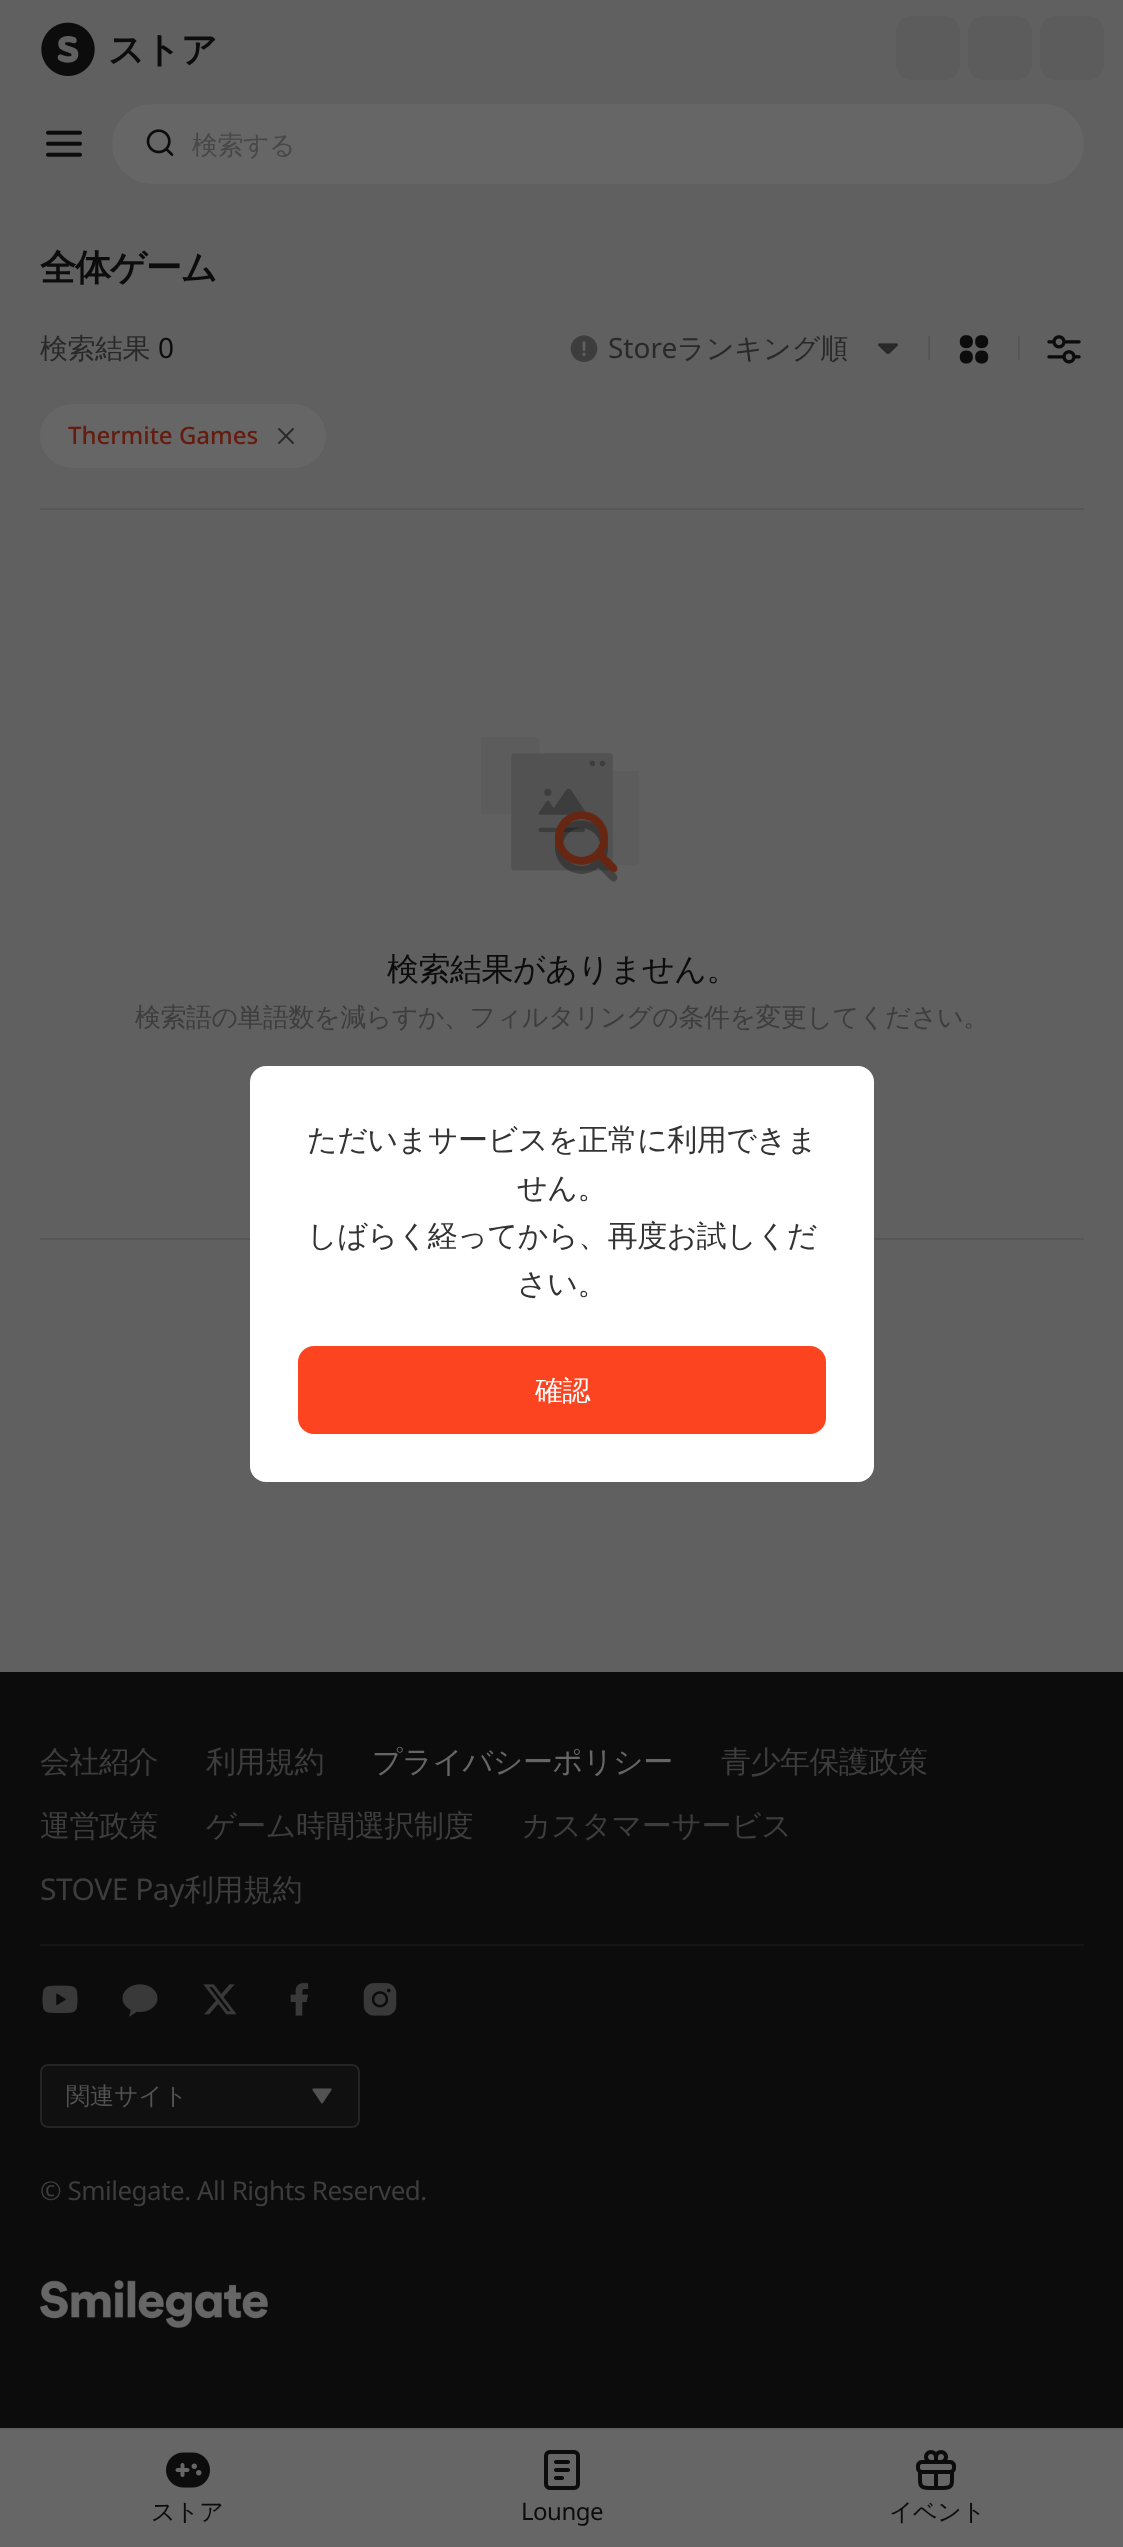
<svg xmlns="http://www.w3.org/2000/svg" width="1123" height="2547">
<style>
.a{font:bold 36px WenQuanYi Zen Hei;letter-spacing:-0.5px;fill:#0c0c0c}
.b{font:500 24px WenQuanYi Zen Hei;letter-spacing:-0.5px;fill:#0c0c0c}
.c{font:24px Noto Sans;letter-spacing:-0.5px;fill:#0c0c0c}
.d{font:500 26px WenQuanYi Zen Hei;letter-spacing:-0.5px;fill:#484848}
.e{font:bold 36px WenQuanYi Zen Hei;letter-spacing:-1px;fill:#0c0c0c}
.f{font:500 28px WenQuanYi Zen Hei;letter-spacing:-0.5px;fill:#292929}
.g{font:28px Noto Sans;letter-spacing:-0.5px;fill:#0c0c0c}
.h{font:28px Noto Sans;fill:#292929}
.i{font:500 28px WenQuanYi Zen Hei;fill:#292929}
.j{font:500 24px Noto Sans;fill:#651b0d}
.k{font:500 32px WenQuanYi Zen Hei;letter-spacing:-0.5px;fill:#0c0c0c}
.l{font:500 26px WenQuanYi Zen Hei;letter-spacing:-0.5px;fill:#3d3d3d}
.m{font:500 30px WenQuanYi Zen Hei;letter-spacing:-0.5px;fill:#333}
.n{font:500 28px WenQuanYi Zen Hei;letter-spacing:-0.5px;fill:#fff}
.o{font:500 30px WenQuanYi Zen Hei;letter-spacing:-0.5px;fill:#3d3d3d}
.p{font:500 30px WenQuanYi Zen Hei;letter-spacing:-0.5px;fill:#666}
.q{font:30px Noto Sans;letter-spacing:-0.5px;fill:#3d3d3d}
.r{font:500 24px WenQuanYi Zen Hei;fill:#525252}
.s{font:26px Noto Sans;letter-spacing:-0.5px;fill:#3d3d3d}
</style>
<rect width="100%" height="100%" fill="#606060"/>
<image href="1.png" x="41" y="22" width="54" height="54"/>
<rect fill="#5c5c5c" x="896" y="16" width="64" height="64" rx="16"/>
<rect fill="#5c5c5c" x="968" y="16" width="64" height="64" rx="16"/>
<rect fill="#5c5c5c" x="1040" y="16" width="64" height="64" rx="16"/>
<path fill="#666" d="M0 2430h1123v117H0z"/>
<image href="2.png" x="166" y="2452" width="44" height="36"/>
<image href="3.png" x="544" y="2450" width="36" height="40"/>
<image href="4.png" x="916" y="2450" width="40" height="40"/>
<image href="5.png" x="46" y="130" width="36" height="27"/>
<rect fill="#666" x="112" y="104" width="972" height="80" rx="40"/>
<image href="6.png" x="146" y="129" width="28" height="27"/>
<image href="7.png" x="570" y="335" width="28" height="27"/>
<image href="8.png" x="878" y="343" width="20" height="11"/>
<path fill="#565656" d="M928 336h2v24H928z"/>
<image href="9.png" x="959" y="335" width="30" height="29"/>
<path fill="#565656" d="M1018 336h2v24H1018z"/>
<image href="10.png" x="1047" y="335" width="34" height="29"/>
<rect fill="#666" x="40" y="404" width="286" height="64" rx="32"/>
<image href="11.png" x="278" y="428" width="16" height="16"/>
<path fill="#565656" d="M40 508h1044v2H40z"/>
<path fill="#565656" d="M40 1238h1044v2H40z"/>
<image href="12.png" x="481" y="737" width="158" height="145"/>
<rect fill="#fff" x="250" y="1066" width="624" height="416" rx="16"/>
<rect fill="#fc4420" stroke="#fc4420" stroke-width="4" x="300" y="1348" width="524" height="84" rx="14"/>
<path fill="#0c0c0c" d="M0 1672h1123v756H0z"/>
<path fill="#151515" d="M40 1944h1044v2H40z"/>
<image href="13.png" x="42" y="1985" width="36" height="29"/>
<image href="14.png" x="122" y="1984" width="36" height="33"/>
<image href="15.png" x="203" y="1984" width="34" height="31"/>
<image href="16.png" x="290" y="1983" width="19" height="33"/>
<image href="17.png" x="363" y="1983" width="34" height="33"/>
<rect fill="#101010" stroke="#242424" stroke-width="2" x="41" y="2065" width="318" height="62" rx="7"/>
<image href="18.png" x="312" y="2088" width="20" height="16"/>
<image href="19.png" x="40" y="2280" width="228" height="48"/>
<text class="a" x="108" y="62">ストア</text>
<text class="b" x="151" y="2520">ストア</text>
<text class="c" x="521" y="2520">Lounge</text>
<text class="b" x="889" y="2520">イベント</text>
<text class="d" x="192" y="154">検索する</text>
<text class="e" x="40" y="280">全体ゲーム</text>
<text class="f" x="40" y="358">検索結果</text>
<text class="g" x="158" y="358">0</text>
<text class="h" x="608" y="358">Store</text>
<text class="i" x="677" y="358">ランキング順</text>
<text class="j" x="68" y="444">Thermite Games</text>
<text class="k" x="387" y="980">検索結果がありません。</text>
<text class="l" x="135" y="1026">検索語の単語数を減らすか、フィルタリングの条件を変更してください。</text>
<text class="m" x="307" y="1150">ただいまサービスを正常に利用できま</text>
<text class="m" x="517" y="1198">せん。</text>
<text class="m" x="307" y="1246">しばらく経ってから、再度お試しくだ</text>
<text class="m" x="517" y="1294">さい。</text>
<text class="n" x="535" y="1400">確認</text>
<text class="o" x="40" y="1772">会社紹介</text>
<text class="o" x="206" y="1772">利用規約</text>
<text class="p" x="372" y="1772">プライバシーポリシー</text>
<text class="o" x="721" y="1772">青少年保護政策</text>
<text class="o" x="40" y="1836">運営政策</text>
<text class="o" x="206" y="1836">ゲーム時間選択制度</text>
<text class="o" x="521" y="1836">カスタマーサービス</text>
<text class="q" x="40" y="1900">STOVE Pay</text>
<text class="o" x="184" y="1900">利用規約</text>
<text class="r" x="66" y="2104">関連サイト</text>
<text class="s" x="40" y="2200">© Smilegate. All Rights Reserved.</text>
</svg>
